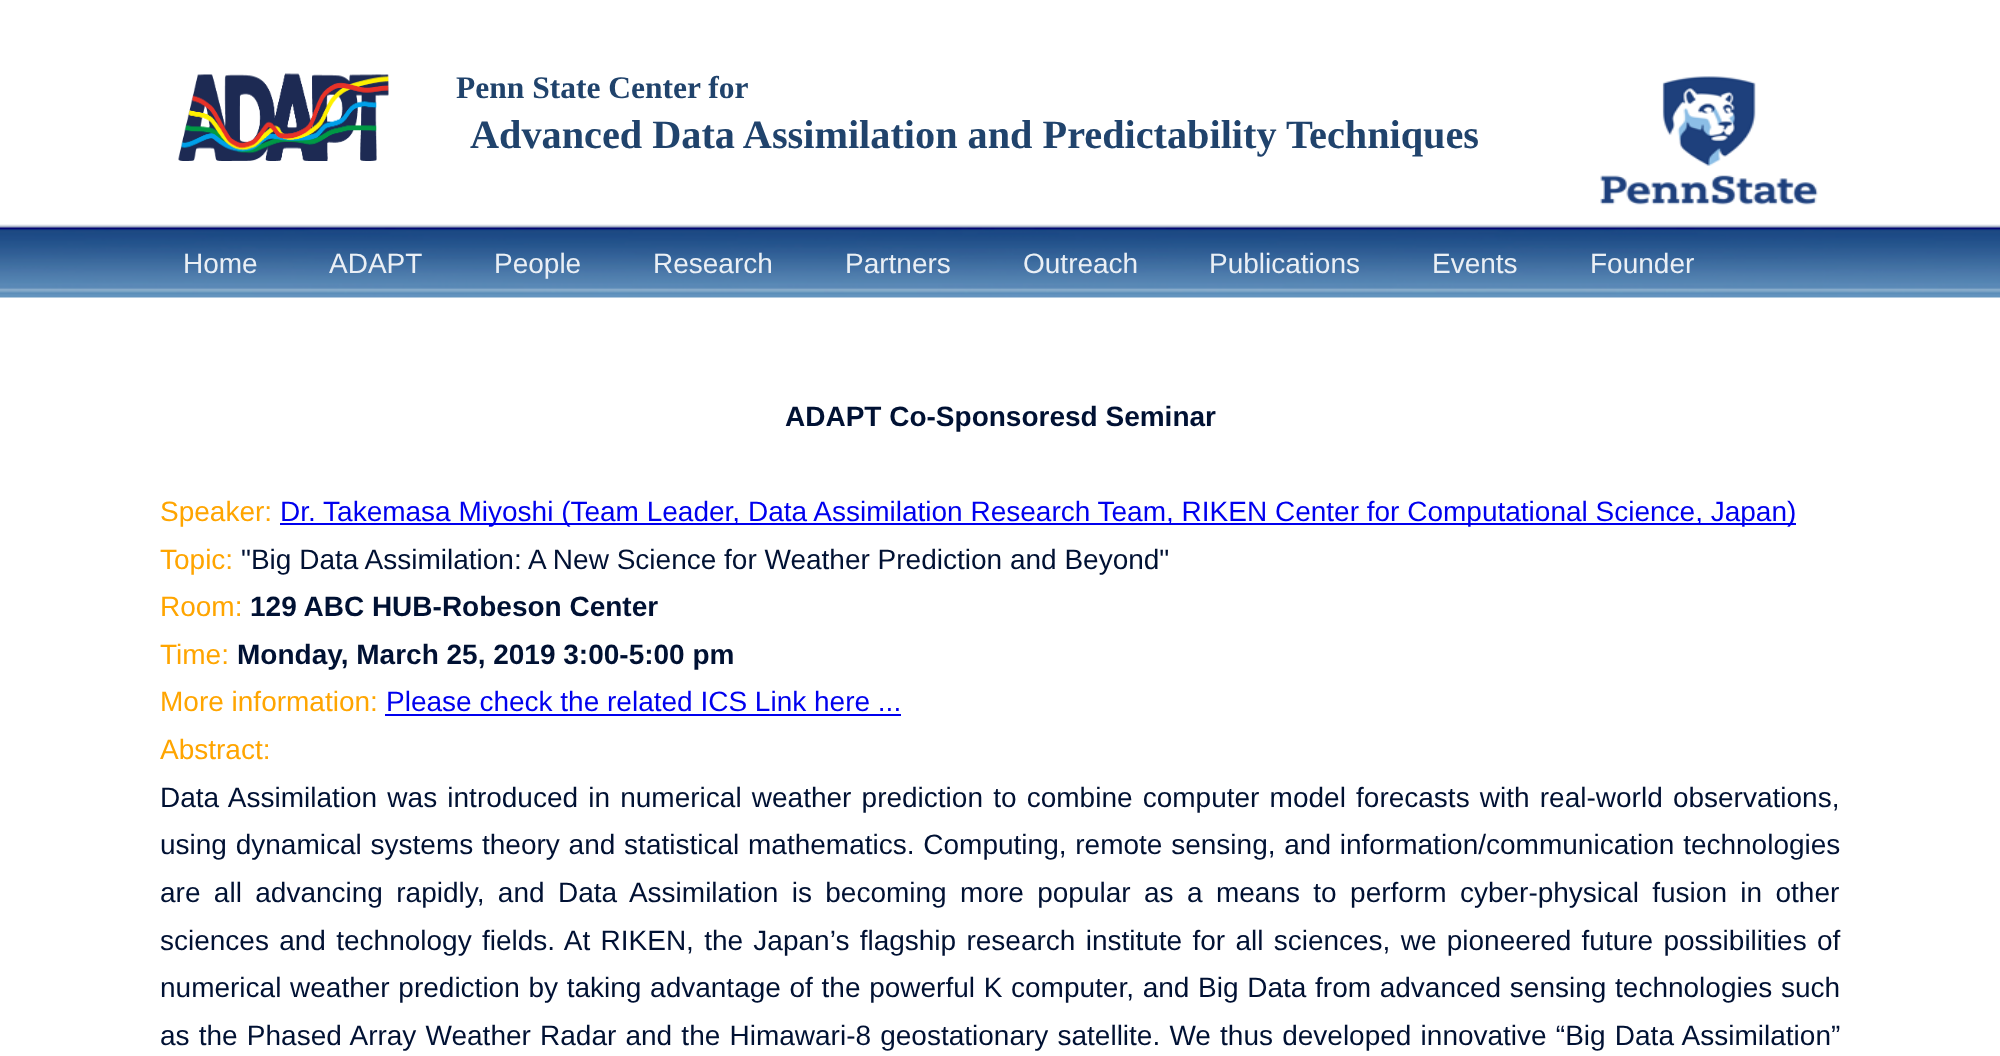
<svg xmlns="http://www.w3.org/2000/svg" width="2000" height="1056">
<style>
.a{font:bold 31.5px Liberation Serif;fill:#20436c}
.b{font:bold 40.25px Liberation Serif;fill:#20436c}
.c{font:28px Liberation Sans;fill:#eaeff5}
.d{font:bold 28px Liberation Sans;fill:#013}
.e{font:28px Liberation Sans;fill:#ffa500}
.f{font:28px Liberation Sans;fill:#00e}
.g{font:28px Liberation Sans;fill:#013}
</style>
<rect width="100%" height="100%" fill="#fff"/>
<image href="1.png" x="0" y="224" width="2000" height="74"/>
<image href="2.png" x="178" y="73" width="211" height="88"/>
<image href="3.png" x="1600" y="76" width="218" height="129"/>
<path fill="#00e" d="M280 523h1516v2H280z"/>
<path fill="#00e" d="M385 714h516v2H385z"/>
<text class="a" x="456" y="98">Penn State Center for</text>
<text class="b" x="470" y="148">Advanced Data Assimilation and Predictability Techniques</text>
<text class="c" x="183" y="273">Home</text>
<text class="c" x="329" y="273">ADAPT</text>
<text class="c" x="494" y="273">People</text>
<text class="c" x="653" y="273">Research</text>
<text class="c" x="845" y="273">Partners</text>
<text class="c" x="1023" y="273">Outreach</text>
<text class="c" x="1209" y="273">Publications</text>
<text class="c" x="1432" y="273">Events</text>
<text class="c" x="1590" y="273">Founder</text>
<text class="d" x="785" y="426">ADAPT Co-Sponsoresd Seminar</text>
<text class="e" x="160" y="521">Speaker:</text>
<text class="f" x="280" y="521">Dr. Takemasa Miyoshi (Team Leader, Data Assimilation Research Team, RIKEN Center for Computational Science, Japan)</text>
<text class="e" x="160" y="569">Topic:</text>
<text class="g" x="241" y="569">"Big Data Assimilation: A New Science for Weather Prediction and Beyond"</text>
<text class="e" x="160" y="616">Room:</text>
<text class="d" x="250" y="616">129 ABC HUB-Robeson Center</text>
<text class="e" x="160" y="664">Time:</text>
<text class="d" x="237" y="664">Monday, March 25, 2019 3:00-5:00 pm</text>
<text class="e" x="160" y="711">More information:</text>
<text class="f" x="386" y="711">Please check the related ICS Link here ...</text>
<text class="e" x="160" y="759">Abstract:</text>
<text class="g" x="160" y="807" word-spacing="2.4">Data Assimilation was introduced in numerical weather prediction to combine computer model forecasts with real-world observations,</text>
<text class="g" x="160" y="854" word-spacing="1">using dynamical systems theory and statistical mathematics. Computing, remote sensing, and information/communication technologies</text>
<text class="g" x="160" y="902" word-spacing="5.6">are all advancing rapidly, and Data Assimilation is becoming more popular as a means to perform cyber-physical fusion in other</text>
<text class="g" x="160" y="950" word-spacing="2.5">sciences and technology fields. At RIKEN, the Japan’s flagship research institute for all sciences, we pioneered future possibilities of</text>
<text class="g" x="160" y="997" word-spacing="0.9">numerical weather prediction by taking advantage of the powerful K computer, and Big Data from advanced sensing technologies such</text>
<text class="g" x="160" y="1045" word-spacing="1.4">as the Phased Array Weather Radar and the Himawari-8 geostationary satellite. We thus developed innovative “Big Data Assimilation”</text>
</svg>
